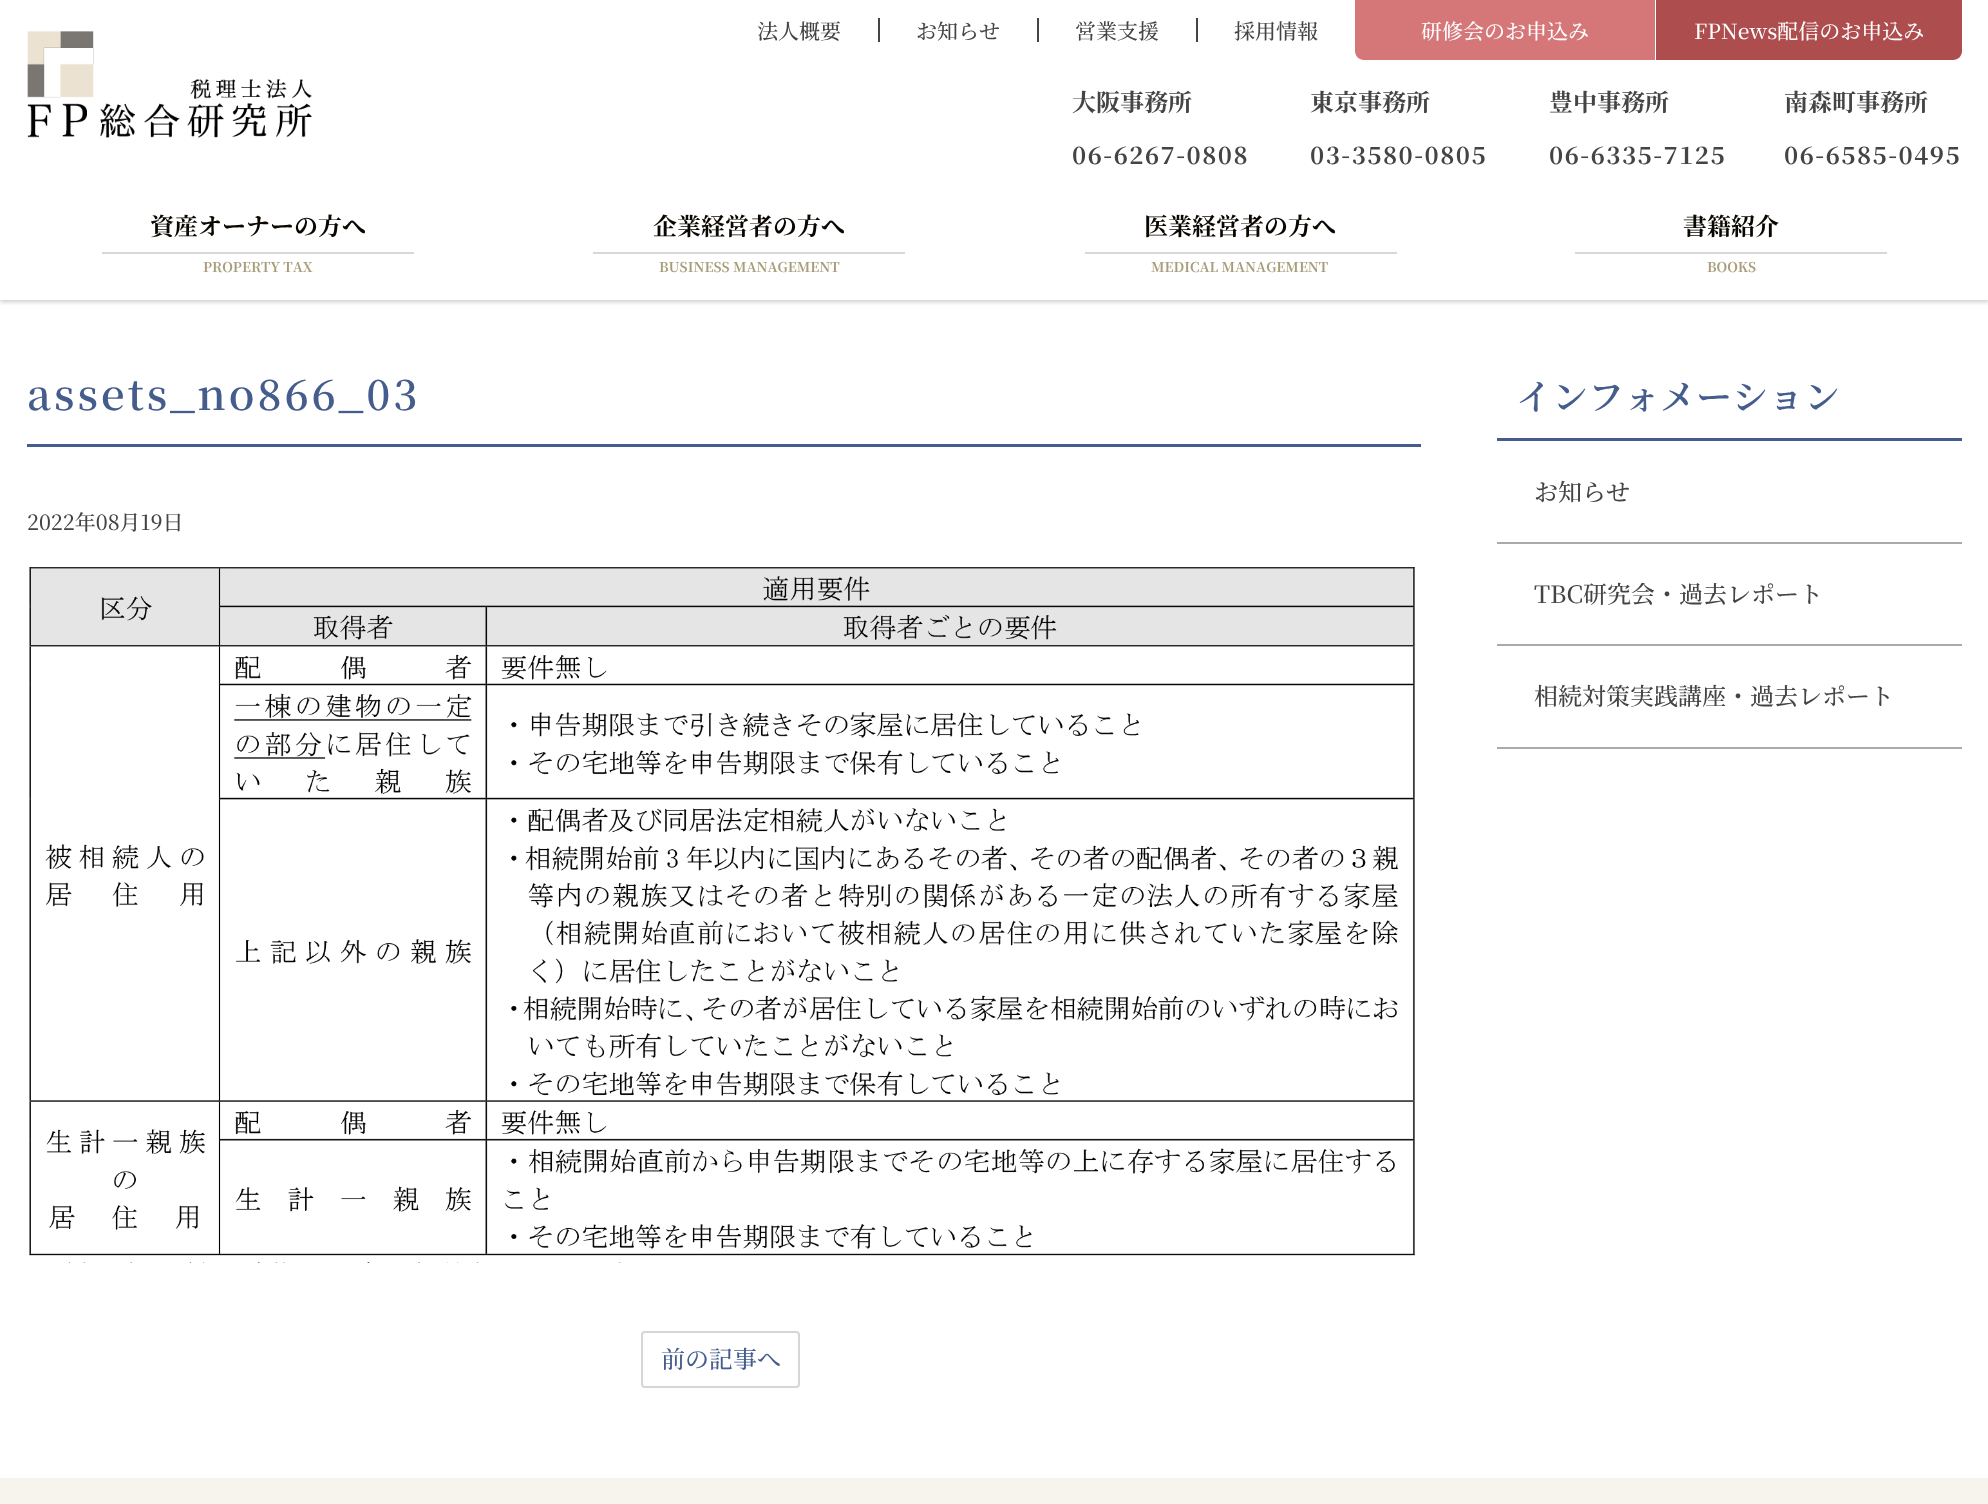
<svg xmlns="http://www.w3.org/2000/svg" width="1988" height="1504">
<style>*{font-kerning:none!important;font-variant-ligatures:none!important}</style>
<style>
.a{font:500 21px Noto Serif JP;fill:#444}
.b{font:500 21px Noto Serif JP;fill:#fff}
.c{font:bold 24px Noto Serif JP;fill:#444}
.d{font:bold 24px Noto Serif JP;letter-spacing:1.5px;fill:#444}
.e{font:bold 24px Noto Serif JP;fill:#0b0700}
.f{font:bold 13.5px Noto Serif JP;fill:#a99c7a}
.g{font:600 42px Noto Serif JP;letter-spacing:3px;fill:#455d8d}
.h{font:500 24px Noto Serif JP;fill:#455d8d}
.i{font:600 36px Noto Serif JP;fill:#455d8d}
.j{font:500 24px Noto Serif JP;fill:#444}
</style>
<defs>
<clipPath id="clip1"><path d="M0 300h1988v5H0z"/></clipPath>
</defs>
<rect width="100%" height="100%" fill="#fff"/>
<g clip-path="url(#clip1)">
<path fill="#00000033" filter="blur(2px)" d="M0 2h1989v300H0z"/>
</g>
<image href="1.png" x="27" y="31" width="285" height="107"/>
<path fill="#444" d="M878 18h2v24H878z"/>
<path fill="#444" d="M1037 18h2v24H1037z"/>
<path fill="#444" d="M1196 18h2v24H1196z"/>
<path fill="#d57779" d="M1355 0h300v60h-291c-5 0-9-4-9-9z"/>
<path fill="#ad4d4e" d="M1656 0h306v51c0 5-4 9-9 9h-297z"/>
<path fill="#d8d8d7" d="M102 252h312v2H102z"/>
<path fill="#d8d8d7" d="M593 252h312v2H593z"/>
<path fill="#d8d8d7" d="M1085 252h312v2H1085z"/>
<path fill="#d8d8d7" d="M1575 252h312v2H1575z"/>
<path fill="#455d8d" d="M27 444h1394v3H27z"/>
<image href="2.png" x="29" y="567" width="1386" height="696"/>
<rect fill="none" stroke="#d6d6d6" stroke-width="2" x="642" y="1332" width="157" height="55" rx="3"/>
<path fill="#455d8d" d="M1497 438h465v3H1497z"/>
<path fill="#aaa" d="M1497 542h465v2H1497z"/>
<path fill="#aaa" d="M1497 644h465v2H1497z"/>
<path fill="#aaa" d="M1497 747h465v2H1497z"/>
<path fill="#f6f4ed" d="M0 1478h1988v26H0z"/>
<text class="a" x="757" y="39">法人概要</text>
<text class="a" x="916" y="39">お知らせ</text>
<text class="a" x="1075" y="39">営業支援</text>
<text class="a" x="1234" y="39">採用情報</text>
<text class="b" x="1421" y="39">研修会のお申込み</text>
<text class="b" x="1694" y="39">FPNews配信のお申込み</text>
<text class="c" x="1072" y="111">大阪事務所</text>
<text class="d" x="1072" y="164">06-6267-0808</text>
<text class="c" x="1310" y="111">東京事務所</text>
<text class="d" x="1310" y="164">03-3580-0805</text>
<text class="c" x="1549" y="111">豊中事務所</text>
<text class="d" x="1549" y="164">06-6335-7125</text>
<text class="c" x="1784" y="111">南森町事務所</text>
<text class="d" x="1784" y="164">06-6585-0495</text>
<text class="e" x="150" y="235">資産オーナーの方へ</text>
<text class="f" x="203" y="272">PROPERTY TAX</text>
<text class="e" x="653" y="235">企業経営者の方へ</text>
<text class="f" x="659" y="272">BUSINESS MANAGEMENT</text>
<text class="e" x="1144" y="235">医業経営者の方へ</text>
<text class="f" x="1151" y="272">MEDICAL MANAGEMENT</text>
<text class="e" x="1683" y="235">書籍紹介</text>
<text class="f" x="1707" y="272">BOOKS</text>
<text class="g" x="27" y="410">assets_no866_03</text>
<text class="a" x="27" y="530">2022年08月19日</text>
<text class="h" x="661" y="1368">前の記事へ</text>
<text class="i" x="1516" y="410">インフォメーション</text>
<text class="j" x="1534" y="501">お知らせ</text>
<text class="j" x="1534" y="603">TBC研究会・過去レポート</text>
<text class="j" x="1534" y="705">相続対策実践講座・過去レポート</text>
</svg>
